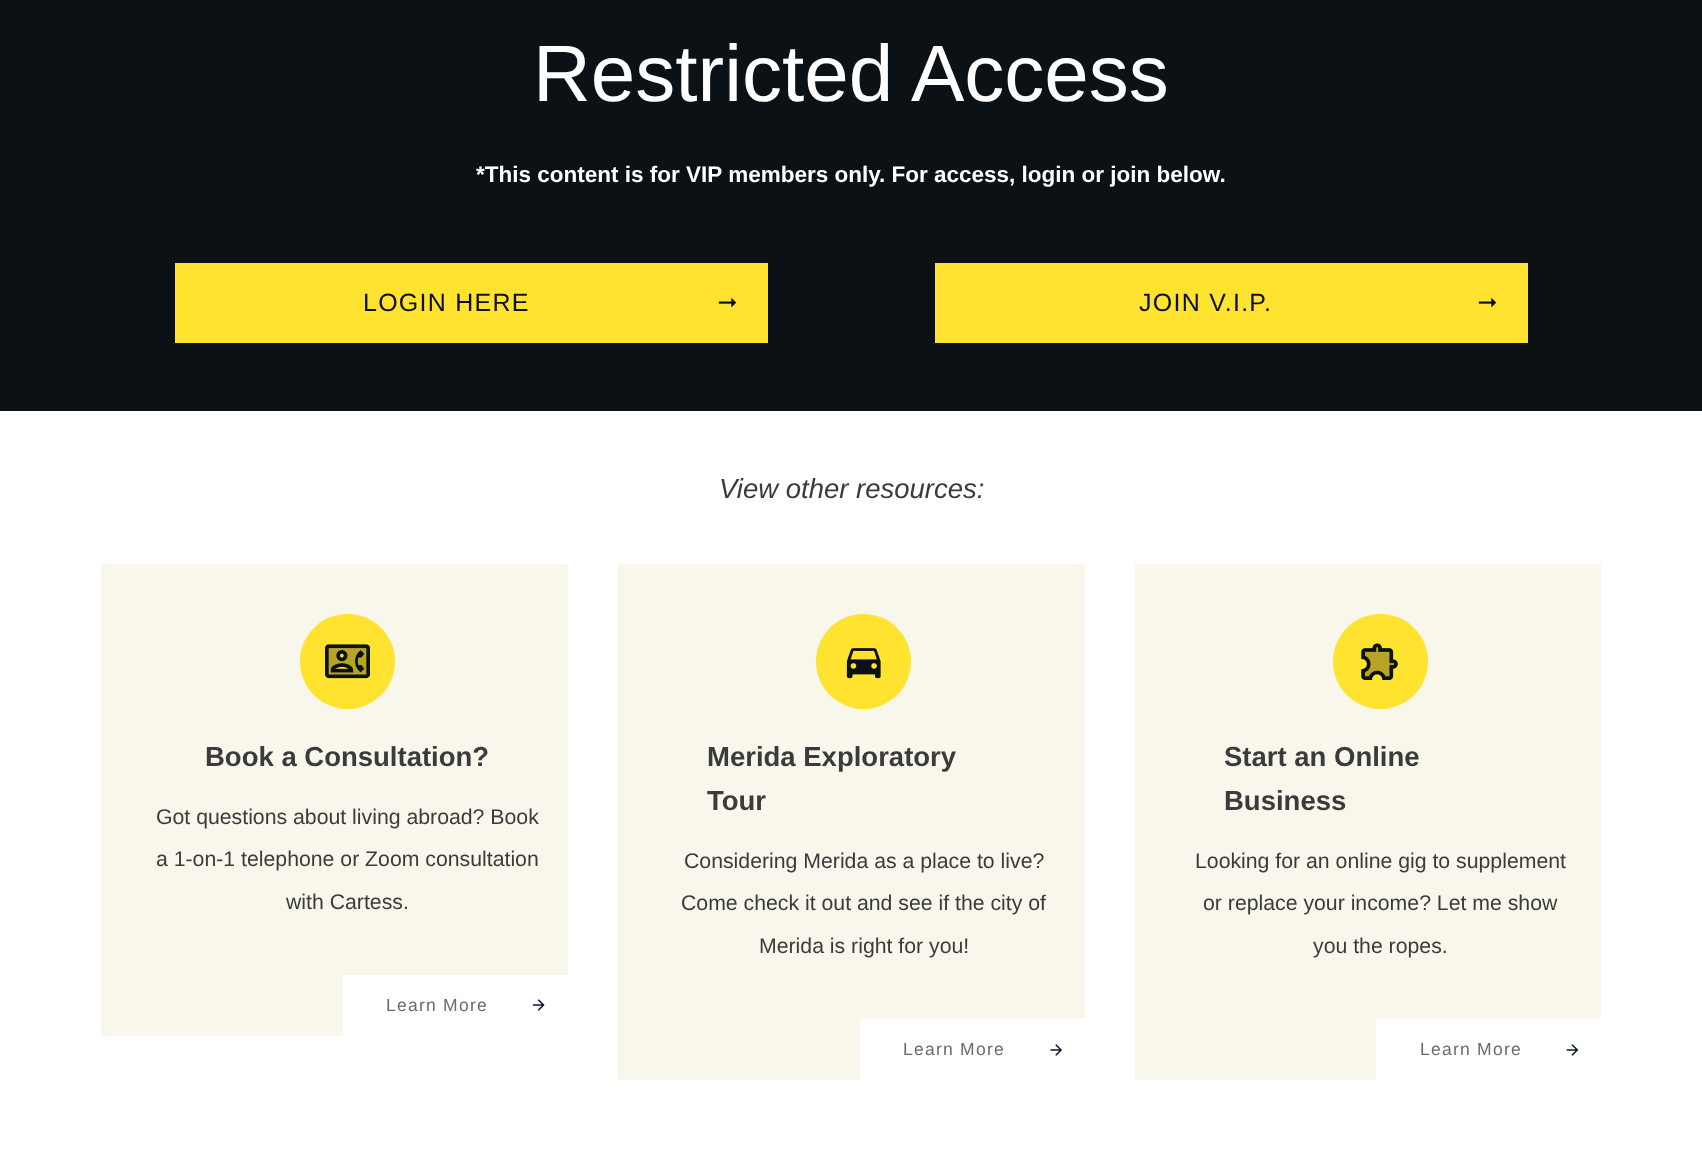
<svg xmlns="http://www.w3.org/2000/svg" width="1702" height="1152">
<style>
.a{font:80px Liberation Sans;fill:#fff}
.b{font:bold 22.5px Liberation Sans;fill:#fff}
.c{font:25px Liberation Sans;letter-spacing:1.25px;fill:#0c1115}
.d{font:italic 27.5px Liberation Sans;fill:#3b3b3b}
.e{font:bold 27.5px Liberation Sans;fill:#3b3b3b}
.f{font:21.25px Liberation Sans;fill:#3b3b3b}
.g{font:17.5px Liberation Sans;letter-spacing:1.25px;fill:#6a6b6c}
</style>
<rect width="100%" height="100%" fill="#fff"/>
<path fill="#0c1115" d="M0 0h1702v411H0z"/>
<path fill="#ffe32e" d="M175 263h593v80H175z"/>
<image href="1.png" x="718" y="298" width="18" height="9"/>
<path fill="#ffe32e" d="M935 263h593v80H935z"/>
<image href="1.png" x="1478" y="298" width="18" height="9"/>
<path fill="#f9f6eb" d="M101 564h467v472H101z"/>
<circle fill="#ffe32e" cx="347.5" cy="661.5" r="47.5"/>
<image href="2.png" x="325" y="644" width="45" height="35"/>
<path fill="#fff" d="M343 975h225v61H343z"/>
<image href="3.png" x="532" y="999" width="13" height="12"/>
<path fill="#f9f6eb" d="M618 564h467v516H618z"/>
<circle fill="#ffe32e" cx="863.5" cy="661.5" r="47.5"/>
<image href="4.png" x="846" y="648" width="35" height="31"/>
<path fill="#fff" d="M860 1019h225v61H860z"/>
<image href="5.png" x="1050" y="1044" width="12" height="12"/>
<path fill="#f9f6eb" d="M1135 564h466v516H1135z"/>
<circle fill="#ffe32e" cx="1380.5" cy="661.5" r="47.5"/>
<image href="6.png" x="1361" y="643" width="37" height="37"/>
<path fill="#fff" d="M1376 1019h225v61H1376z"/>
<image href="7.png" x="1566" y="1044" width="13" height="12"/>
<text class="a" x="533" y="101">Restricted Access</text>
<text class="b" x="476" y="182">*This content is for VIP members only. For access, login or join below.</text>
<text class="c" x="363" y="311">LOGIN HERE</text>
<text class="c" x="1139" y="311">JOIN V.I.P.</text>
<text class="d" x="719" y="498">View other resources:</text>
<text class="e" x="205" y="766">Book a Consultation?</text>
<text class="f" x="156" y="824">Got questions about living abroad? Book</text>
<text class="f" x="156" y="866">a 1-on-1 telephone or Zoom consultation</text>
<text class="f" x="286" y="909">with Cartess.</text>
<text class="g" x="386" y="1011">Learn More</text>
<text class="e" x="707" y="766">Merida Exploratory</text>
<text class="e" x="707" y="810">Tour</text>
<text class="f" x="684" y="868">Considering Merida as a place to live?</text>
<text class="f" x="681" y="910">Come check it out and see if the city of</text>
<text class="f" x="759" y="953">Merida is right for you!</text>
<text class="g" x="903" y="1055">Learn More</text>
<text class="e" x="1224" y="766">Start an Online</text>
<text class="e" x="1224" y="810">Business</text>
<text class="f" x="1195" y="868">Looking for an online gig to supplement</text>
<text class="f" x="1203" y="910">or replace your income? Let me show</text>
<text class="f" x="1313" y="953">you the ropes.</text>
<text class="g" x="1420" y="1055">Learn More</text>
</svg>
